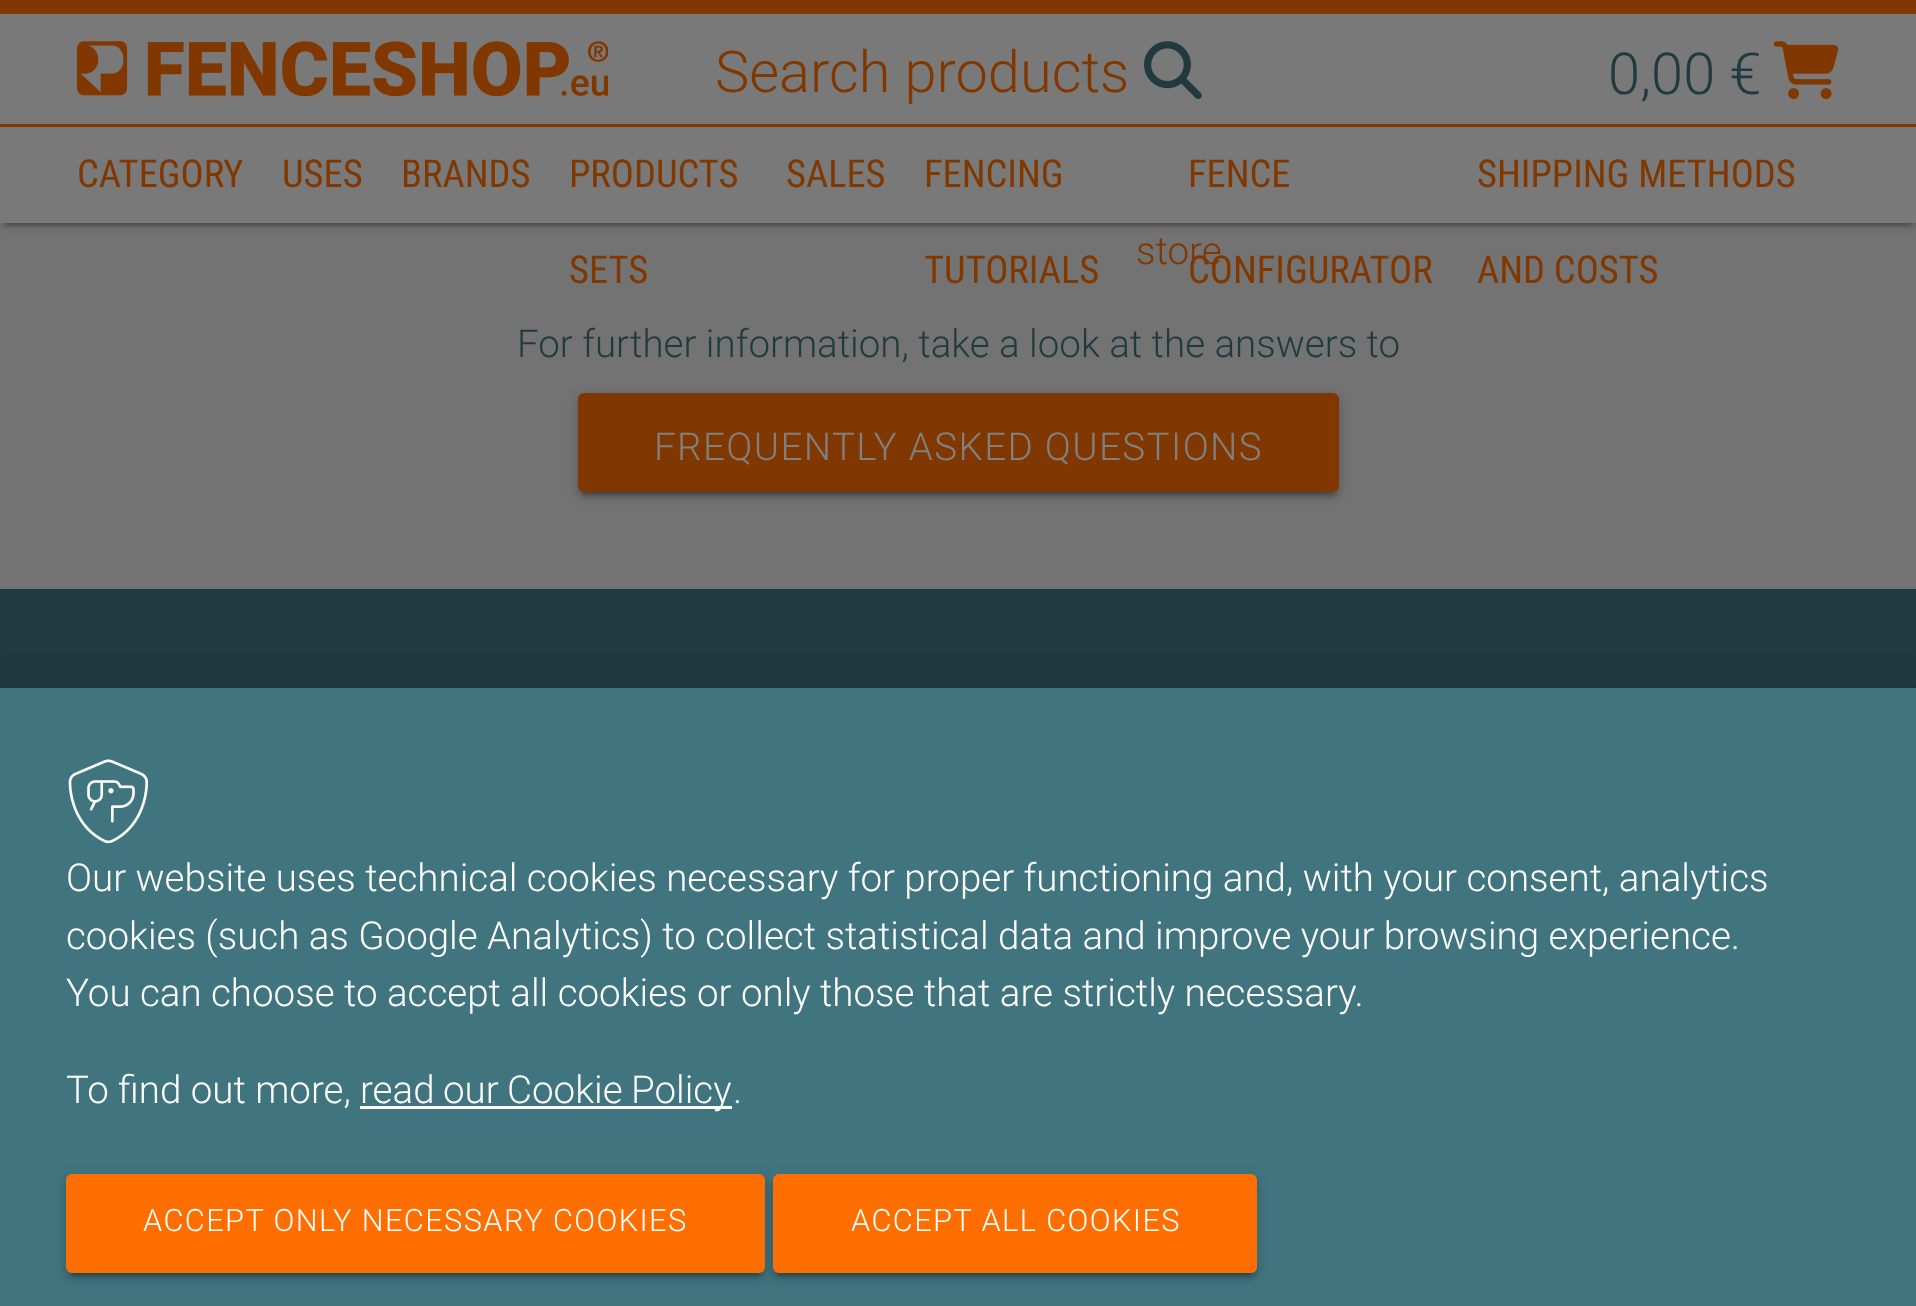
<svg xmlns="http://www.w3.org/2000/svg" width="1916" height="1306">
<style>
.a{font:300 57.75px Roboto;fill:#803700}
.b{font:300 57.75px Roboto;fill:#203b40}
.c{font:38.5px Roboto Condensed;fill:#803700}
.d{font:300 38.5px Roboto;fill:#803700}
.e{font:300 38.5px Roboto;fill:#203b40}
.f{font:300 38.5px Roboto;letter-spacing:1.4px;fill:#808080}
.g{font:300 38.5px Roboto;fill:#fff}
.h{font:300 30.75px Roboto;letter-spacing:1.4px;fill:#fff}
</style>
<defs>
<clipPath id="clip1"><path d="M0 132h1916v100h-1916zm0-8h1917v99h-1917z" clip-rule="evenodd"/></clipPath>
<clipPath id="clip2"><path d="M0 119h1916v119h-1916zm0 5h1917v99h-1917z" clip-rule="evenodd"/></clipPath>
</defs>
<rect width="100%" height="100%" fill="#737373"/>
<path fill="#797979" d="M0 14h1916v209H0z"/>
<path fill="#803700" d="M0 0h1916v14H0z"/>
<image href="1.png" x="77" y="41" width="531" height="55"/>
<image href="2.png" x="1144" y="41" width="58" height="58"/>
<image href="3.png" x="1773" y="41" width="66" height="58"/>
<g clip-path="url(#clip1)">
<path fill="#00000033" filter="blur(1.5px)" d="M6 138h1905v88H6z"/>
</g>
<g clip-path="url(#clip2)">
<path fill="#00000024" filter="blur(3px)" d="M0 129h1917v99H0z"/>
</g>
<path fill="#803700" d="M0 124h1916v3H0z"/>
<path fill="#00000033" filter="blur(1.5px)" d="M583 407h751v88H583z"/>
<rect fill="#0000001f" filter="blur(7px)" x="578" y="396" width="761" height="99" rx="6"/>
<rect fill="#00000024" filter="blur(3px)" x="578" y="399" width="761" height="99" rx="6"/>
<rect fill="#803700" x="578" y="393" width="761" height="99" rx="6"/>
<path fill="#203b40" d="M0 589h1916v99H0z"/>
<path fill="#0000001f" filter="blur(19px)" d="M-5 690h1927v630H-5z"/>
<path fill="#407580" d="M0 688h1916v618H0z"/>
<image href="4.png" x="68" y="759" width="81" height="85"/>
<path fill="#fff" d="M360 1106h372v3H360z"/>
<path fill="#00000033" filter="blur(1.5px)" d="M72 1188h687v88H72z"/>
<rect fill="#0000001f" filter="blur(7px)" x="66" y="1177" width="699" height="99" rx="6"/>
<rect fill="#00000024" filter="blur(3px)" x="66" y="1180" width="699" height="99" rx="6"/>
<rect fill="#ff6e00" x="66" y="1174" width="699" height="99" rx="6"/>
<path fill="#00000033" filter="blur(1.5px)" d="M778 1188h473v88H778z"/>
<rect fill="#0000001f" filter="blur(7px)" x="773" y="1177" width="484" height="99" rx="6"/>
<rect fill="#00000024" filter="blur(3px)" x="773" y="1180" width="484" height="99" rx="6"/>
<rect fill="#ff6e00" x="773" y="1174" width="484" height="99" rx="6"/>
<text class="a" x="715" y="92">Search products</text>
<text class="b" x="1608" y="94">0,00 €</text>
<text class="c" x="77" y="187">CATEGORY</text>
<text class="c" x="282" y="187">USES</text>
<text class="c" x="401" y="187">BRANDS</text>
<text class="c" x="569" y="187">PRODUCTS</text>
<text class="c" x="569" y="283">SETS</text>
<text class="c" x="786" y="187">SALES</text>
<text class="c" x="924" y="187">FENCING</text>
<text class="c" x="924" y="283">TUTORIALS</text>
<text class="c" x="1188" y="187">FENCE</text>
<text class="c" x="1188" y="283">CONFIGURATOR</text>
<text class="c" x="1477" y="187">SHIPPING METHODS</text>
<text class="c" x="1477" y="283">AND COSTS</text>
<text class="d" x="1136" y="264">store</text>
<text class="e" x="517" y="357">For further information, take a look at the answers to</text>
<text class="f" x="654" y="460">FREQUENTLY ASKED QUESTIONS</text>
<text class="g" x="66" y="891">Our website uses technical cookies necessary for proper functioning and, with your consent, analytics</text>
<text class="g" x="66" y="949">cookies (such as Google Analytics) to collect statistical data and improve your browsing experience.</text>
<text class="g" x="66" y="1006">You can choose to accept all cookies or only those that are strictly necessary.</text>
<text class="g" x="66" y="1103">To find out more,</text>
<text class="g" x="360" y="1103" word-spacing="-1">read our Cookie Policy</text>
<text class="g" x="733" y="1103">.</text>
<text class="h" x="143" y="1231">ACCEPT ONLY NECESSARY COOKIES</text>
<text class="h" x="851" y="1231">ACCEPT ALL COOKIES</text>
</svg>
